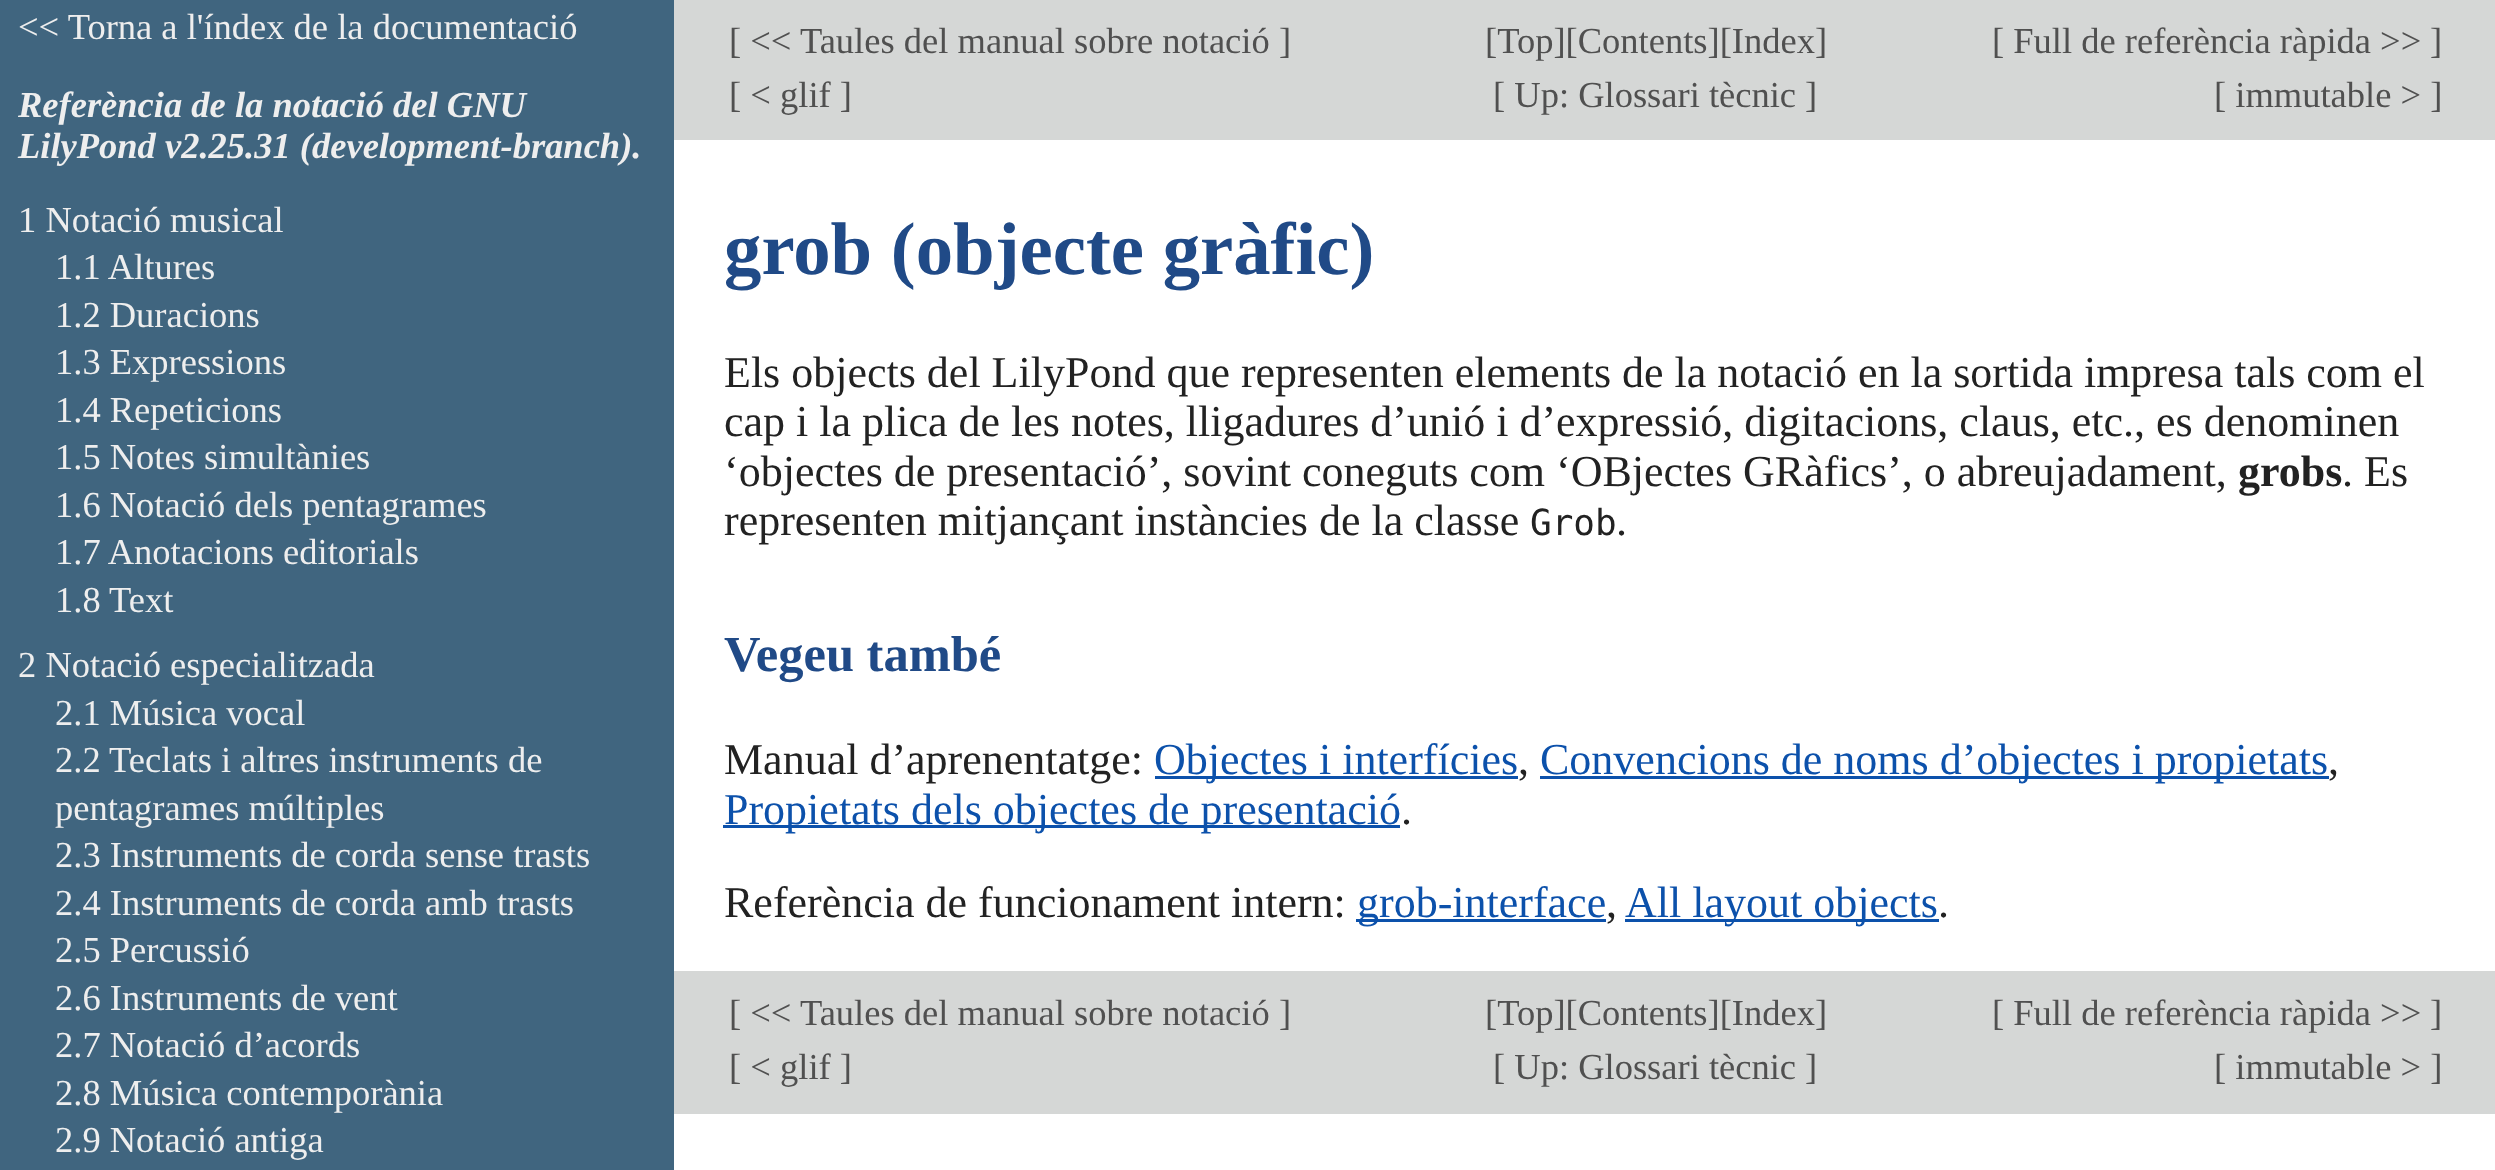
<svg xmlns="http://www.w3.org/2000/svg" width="2495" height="1170">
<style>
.a{font:36.5px Liberation Serif;fill:#eee}
.b{font:italic bold 36.5px Liberation Serif;fill:#eee}
.c{font:36.5px Liberation Serif;fill:#505050}
.d{font:bold 74.75px Liberation Serif;fill:#204a87}
.e{font:44px Liberation Serif;fill:#222}
.f{font:bold 44px Liberation Serif;fill:#222}
.g{font:36px DejaVu Sans Mono;fill:#222}
.h{font:bold 50.5px Liberation Serif;fill:#204a87}
.i{font:44px Liberation Serif;fill:#0c51ab}
</style>
<rect width="100%" height="100%" fill="#fff"/>
<path fill="#40657f" d="M0 0h674v1170H0z"/>
<path fill="#d5d7d6" d="M674 0h1821v140H674z"/>
<path fill="#0c51ab" d="M1155 776h363v3H1155z"/>
<path fill="#0c51ab" d="M1540 776h789v3H1540z"/>
<path fill="#0c51ab" d="M723 825h677v3H723z"/>
<path fill="#0c51ab" d="M1356 919h250v3H1356z"/>
<path fill="#0c51ab" d="M1625 919h314v3H1625z"/>
<path fill="#d5d7d6" d="M674 971h1821v143H674z"/>
<text class="a" x="18" y="39">&lt;&lt; Torna a l'índex de la documentació</text>
<text class="b" x="18" y="117">Referència de la notació del GNU</text>
<text class="b" x="18" y="158">LilyPond v2.25.31 (development-branch).</text>
<text class="a" x="18" y="232">1 Notació musical</text>
<text class="a" x="55" y="279">1.1 Altures</text>
<text class="a" x="55" y="327">1.2 Duracions</text>
<text class="a" x="55" y="374">1.3 Expressions</text>
<text class="a" x="55" y="422">1.4 Repeticions</text>
<text class="a" x="55" y="469">1.5 Notes simultànies</text>
<text class="a" x="55" y="517">1.6 Notació dels pentagrames</text>
<text class="a" x="55" y="564">1.7 Anotacions editorials</text>
<text class="a" x="55" y="612">1.8 Text</text>
<text class="a" x="18" y="677">2 Notació especialitzada</text>
<text class="a" x="55" y="725">2.1 Música vocal</text>
<text class="a" x="55" y="772">2.2 Teclats i altres instruments de</text>
<text class="a" x="55" y="820">pentagrames múltiples</text>
<text class="a" x="55" y="867">2.3 Instruments de corda sense trasts</text>
<text class="a" x="55" y="915">2.4 Instruments de corda amb trasts</text>
<text class="a" x="55" y="962">2.5 Percussió</text>
<text class="a" x="55" y="1010">2.6 Instruments de vent</text>
<text class="a" x="55" y="1057">2.7 Notació d’acords</text>
<text class="a" x="55" y="1105">2.8 Música contemporània</text>
<text class="a" x="55" y="1152">2.9 Notació antiga</text>
<text class="c" x="729" y="53">[ &lt;&lt; Taules del manual sobre notació</text>
<text class="c" x="1279" y="53">]</text>
<text class="c" x="1485" y="53">[Top][Contents][Index]</text>
<text class="c" x="1992" y="53">[ Full de referència ràpida &gt;&gt;</text>
<text class="c" x="2430" y="53">]</text>
<text class="c" x="729" y="107">[ &lt; glif ]</text>
<text class="c" x="1493" y="107">[ Up: Glossari tècnic</text>
<text class="c" x="1805" y="107">]</text>
<text class="c" x="2214" y="107">[ immutable &gt; ]</text>
<text class="d" x="724" y="274">grob (objecte gràfic)</text>
<text class="e" x="724" y="387">Els objects del LilyPond que representen elements de la notació en la sortida impresa tals com el</text>
<text class="e" x="724" y="436">cap i la plica de les notes, lligadures d’unió i d’expressió, digitacions, claus, etc., es denominen</text>
<text class="e" x="724" y="486">‘objectes de presentació’, sovint coneguts com ‘OBjectes GRàfics’, o abreujadament,</text>
<text class="f" x="2238" y="486">grobs</text>
<text class="e" x="2342" y="486">. Es</text>
<text class="e" x="724" y="535">representen mitjançant instàncies de la classe</text>
<text class="g" x="1530" y="535">Grob</text>
<text class="e" x="1616" y="535">.</text>
<text class="h" x="724" y="671">Vegeu també</text>
<text class="e" x="724" y="774">Manual d’aprenentatge:</text>
<text class="i" x="1154" y="774">Objectes i interfícies</text>
<text class="e" x="1518" y="774">,</text>
<text class="i" x="1540" y="774">Convencions de noms d’objectes i propietats</text>
<text class="e" x="2328" y="774">,</text>
<text class="i" x="724" y="824">Propietats dels objectes de presentació</text>
<text class="e" x="1401" y="824">.</text>
<text class="e" x="724" y="917">Referència de funcionament intern:</text>
<text class="i" x="1357" y="917">grob-interface</text>
<text class="e" x="1606" y="917">,</text>
<text class="i" x="1625" y="917">All layout objects</text>
<text class="e" x="1938" y="917">.</text>
<text class="c" x="729" y="1025">[ &lt;&lt; Taules del manual sobre notació</text>
<text class="c" x="1279" y="1025">]</text>
<text class="c" x="1485" y="1025">[Top][Contents][Index]</text>
<text class="c" x="1992" y="1025">[ Full de referència ràpida &gt;&gt;</text>
<text class="c" x="2430" y="1025">]</text>
<text class="c" x="729" y="1079">[ &lt; glif ]</text>
<text class="c" x="1493" y="1079">[ Up: Glossari tècnic</text>
<text class="c" x="1805" y="1079">]</text>
<text class="c" x="2214" y="1079">[ immutable &gt; ]</text>
</svg>
